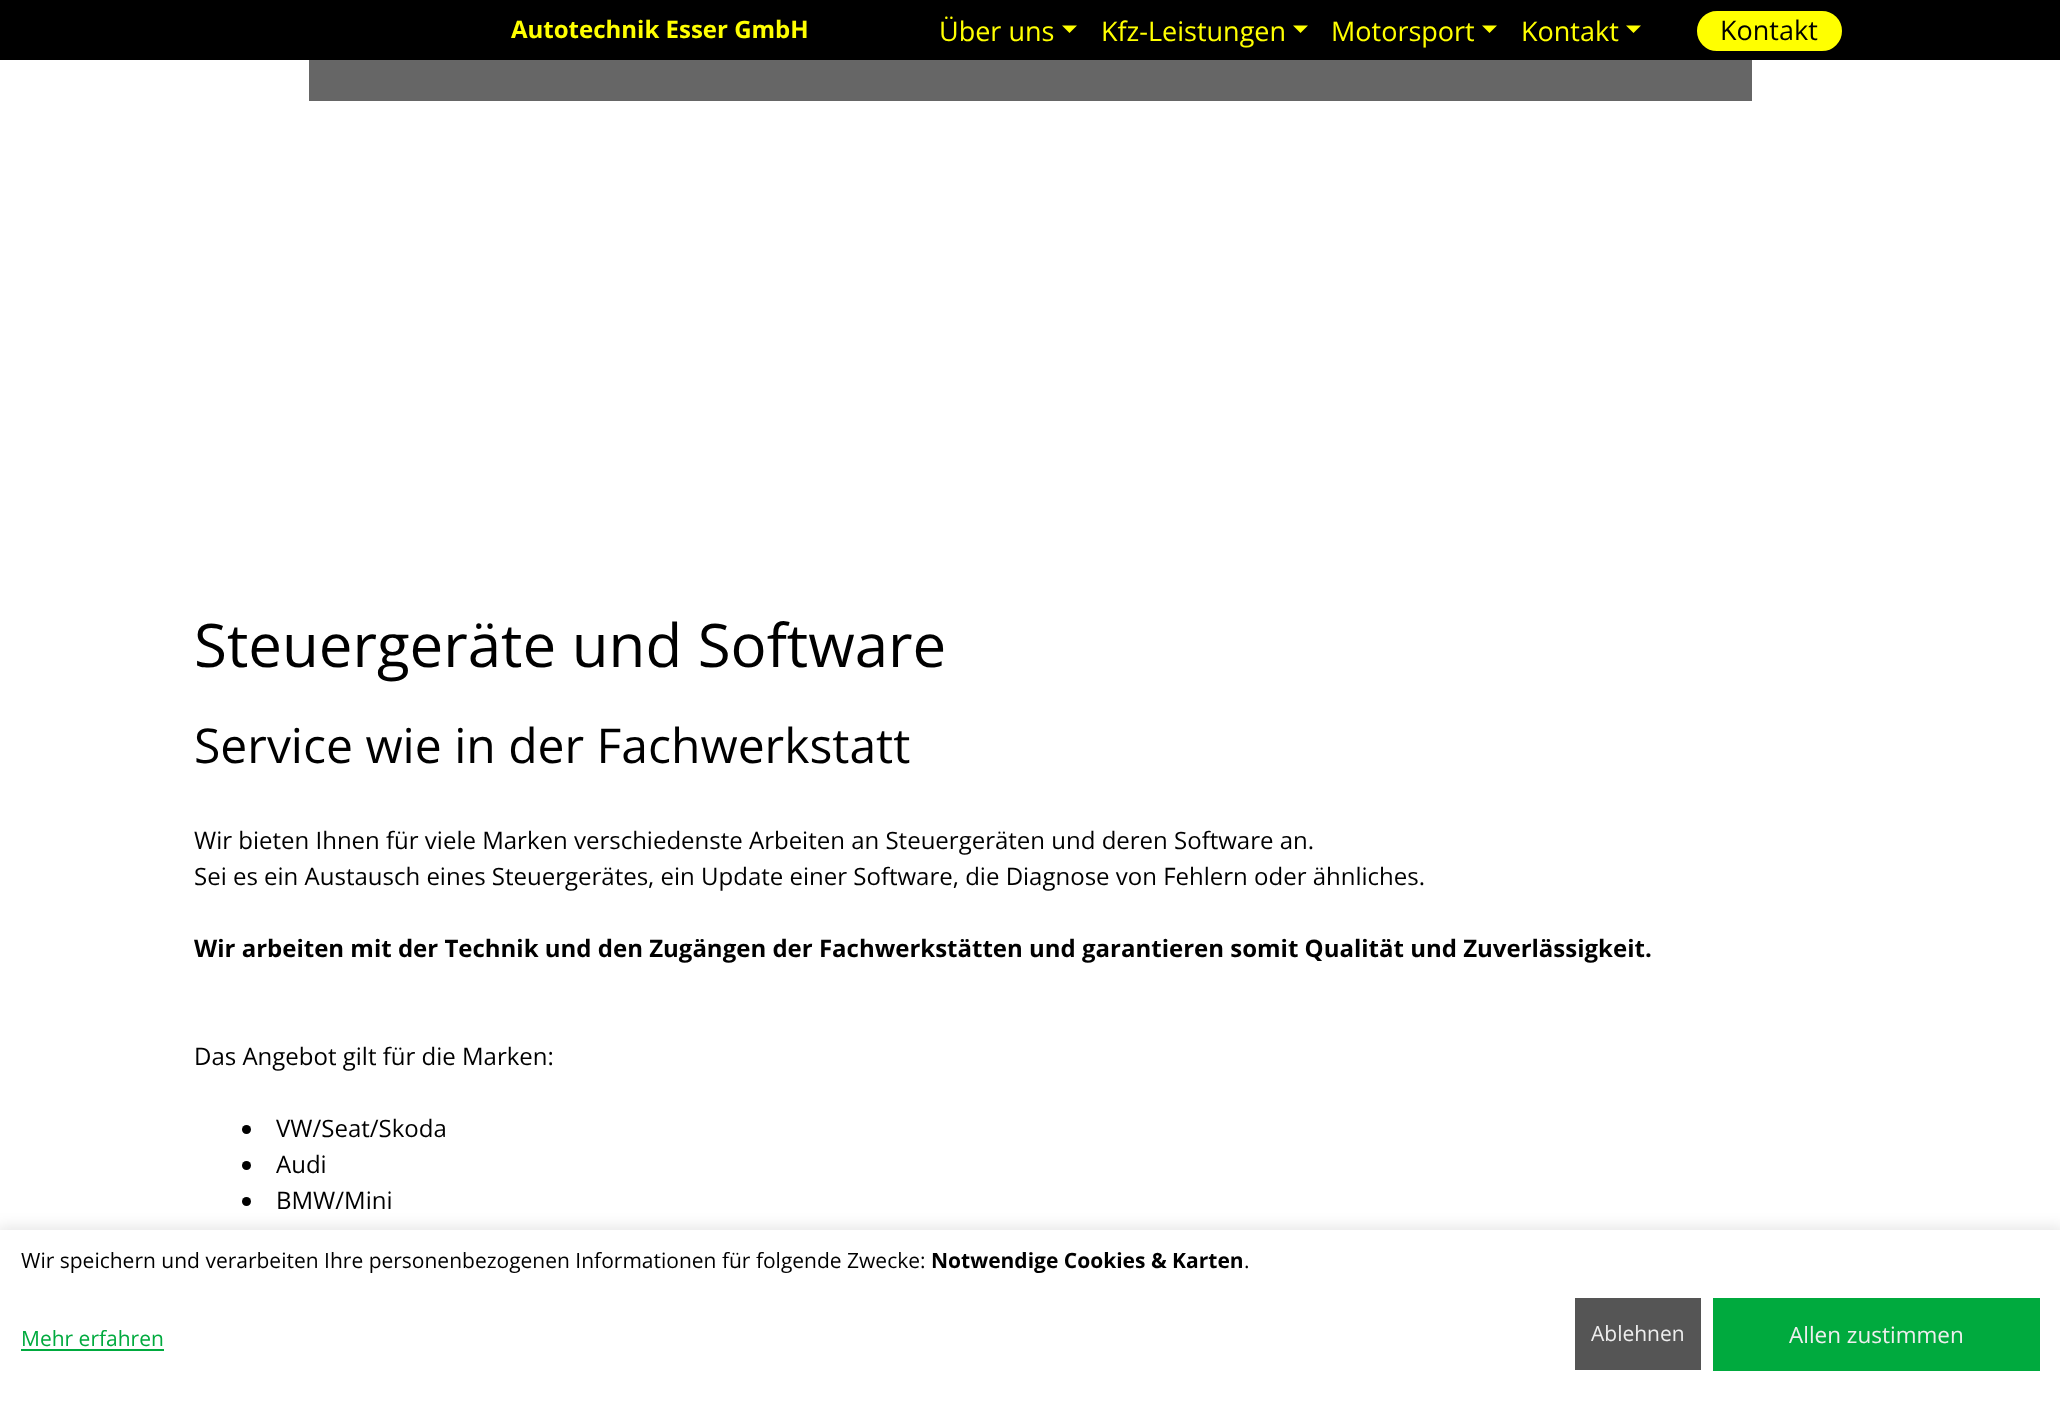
<svg xmlns="http://www.w3.org/2000/svg" width="2060" height="1415">
<style>
.a{font:bold 24px Open Sans;fill:#ff0}
.b{font:27px Open Sans;fill:#ff0}
.c{font:27px Open Sans;fill:#000}
.d{font:60px Open Sans;fill:#000}
.e{font:48px Open Sans;fill:#000}
.f{font:24px Open Sans;fill:#000}
.g{font:bold 24px Open Sans;fill:#000}
.h{font:21px Open Sans;fill:#000}
.i{font:bold 21px Open Sans;fill:#000}
.j{font:21px Open Sans;fill:#00aa3e}
.k{font:21px Open Sans;fill:#eee}
.l{font:22.5px Open Sans;fill:#eee}
</style>
<rect width="100%" height="100%" fill="#fff"/>
<path fill="#000" d="M0 0h2060v60H0z"/>
<path fill="#ff0" d="M1062 25.5h15l-7.5 7.5z"/>
<path fill="#ff0" d="M1293 25.5h15l-7.5 7.5z"/>
<path fill="#ff0" d="M1482 25.5h15l-7.5 7.5z"/>
<path fill="#ff0" d="M1626 25.5h15l-7.5 7.5z"/>
<rect fill="#ff0" stroke="#000" stroke-width="2" x="1696" y="10" width="147" height="42" rx="21"/>
<path fill="#666" d="M309 60h1443v41H309z"/>
<circle fill="#000" cx="246.5" cy="1129.5" r="4.5"/>
<circle fill="#000" cx="246.5" cy="1165.5" r="4.5"/>
<circle fill="#000" cx="246.5" cy="1201.5" r="4.5"/>
<path fill="#0000001a" filter="blur(7.5px)" d="M-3 1227h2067v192H-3z"/>
<path fill="#fff" d="M0 1230h2060v185H0z"/>
<path fill="#00aa3e" d="M21 1349h143v2H21z"/>
<path fill="#555" d="M1575 1298h126v72H1575z"/>
<path fill="#00aa3e" d="M1713 1298h327v73H1713z"/>
<text class="a" x="511" y="38">Autotechnik Esser GmbH</text>
<text class="b" x="939" y="41">Über uns</text>
<text class="b" x="1101" y="41">Kfz-Leistungen</text>
<text class="b" x="1331" y="41">Motorsport</text>
<text class="b" x="1521" y="41">Kontakt</text>
<text class="c" x="1720" y="40">Kontakt</text>
<text class="d" x="194" y="667">Steuergeräte und Software</text>
<text class="e" x="194" y="763">Service wie in der Fachwerkstatt</text>
<text class="f" x="194" y="849">Wir bieten Ihnen für viele Marken verschiedenste Arbeiten an Steuergeräten und deren Software an.</text>
<text class="f" x="194" y="885">Sei es ein Austausch eines Steuergerätes, ein Update einer Software, die Diagnose von Fehlern oder ähnliches.</text>
<text class="g" x="194" y="957">Wir arbeiten mit der Technik und den Zugängen der Fachwerkstätten und garantieren somit Qualität und Zuverlässigkeit.</text>
<text class="f" x="194" y="1065">Das Angebot gilt für die Marken:</text>
<text class="f" x="276" y="1137">VW/Seat/Skoda</text>
<text class="f" x="276" y="1173">Audi</text>
<text class="f" x="276" y="1209">BMW/Mini</text>
<text class="h" x="21" y="1268">Wir speichern und verarbeiten Ihre personenbezogenen Informationen für folgende Zwecke:</text>
<text class="i" x="931" y="1268">Notwendige Cookies &amp; Karten</text>
<text class="h" x="1244" y="1268">.</text>
<text class="j" x="21" y="1346">Mehr erfahren</text>
<text class="k" x="1591" y="1341">Ablehnen</text>
<text class="l" x="1789" y="1343">Allen zustimmen</text>
</svg>
